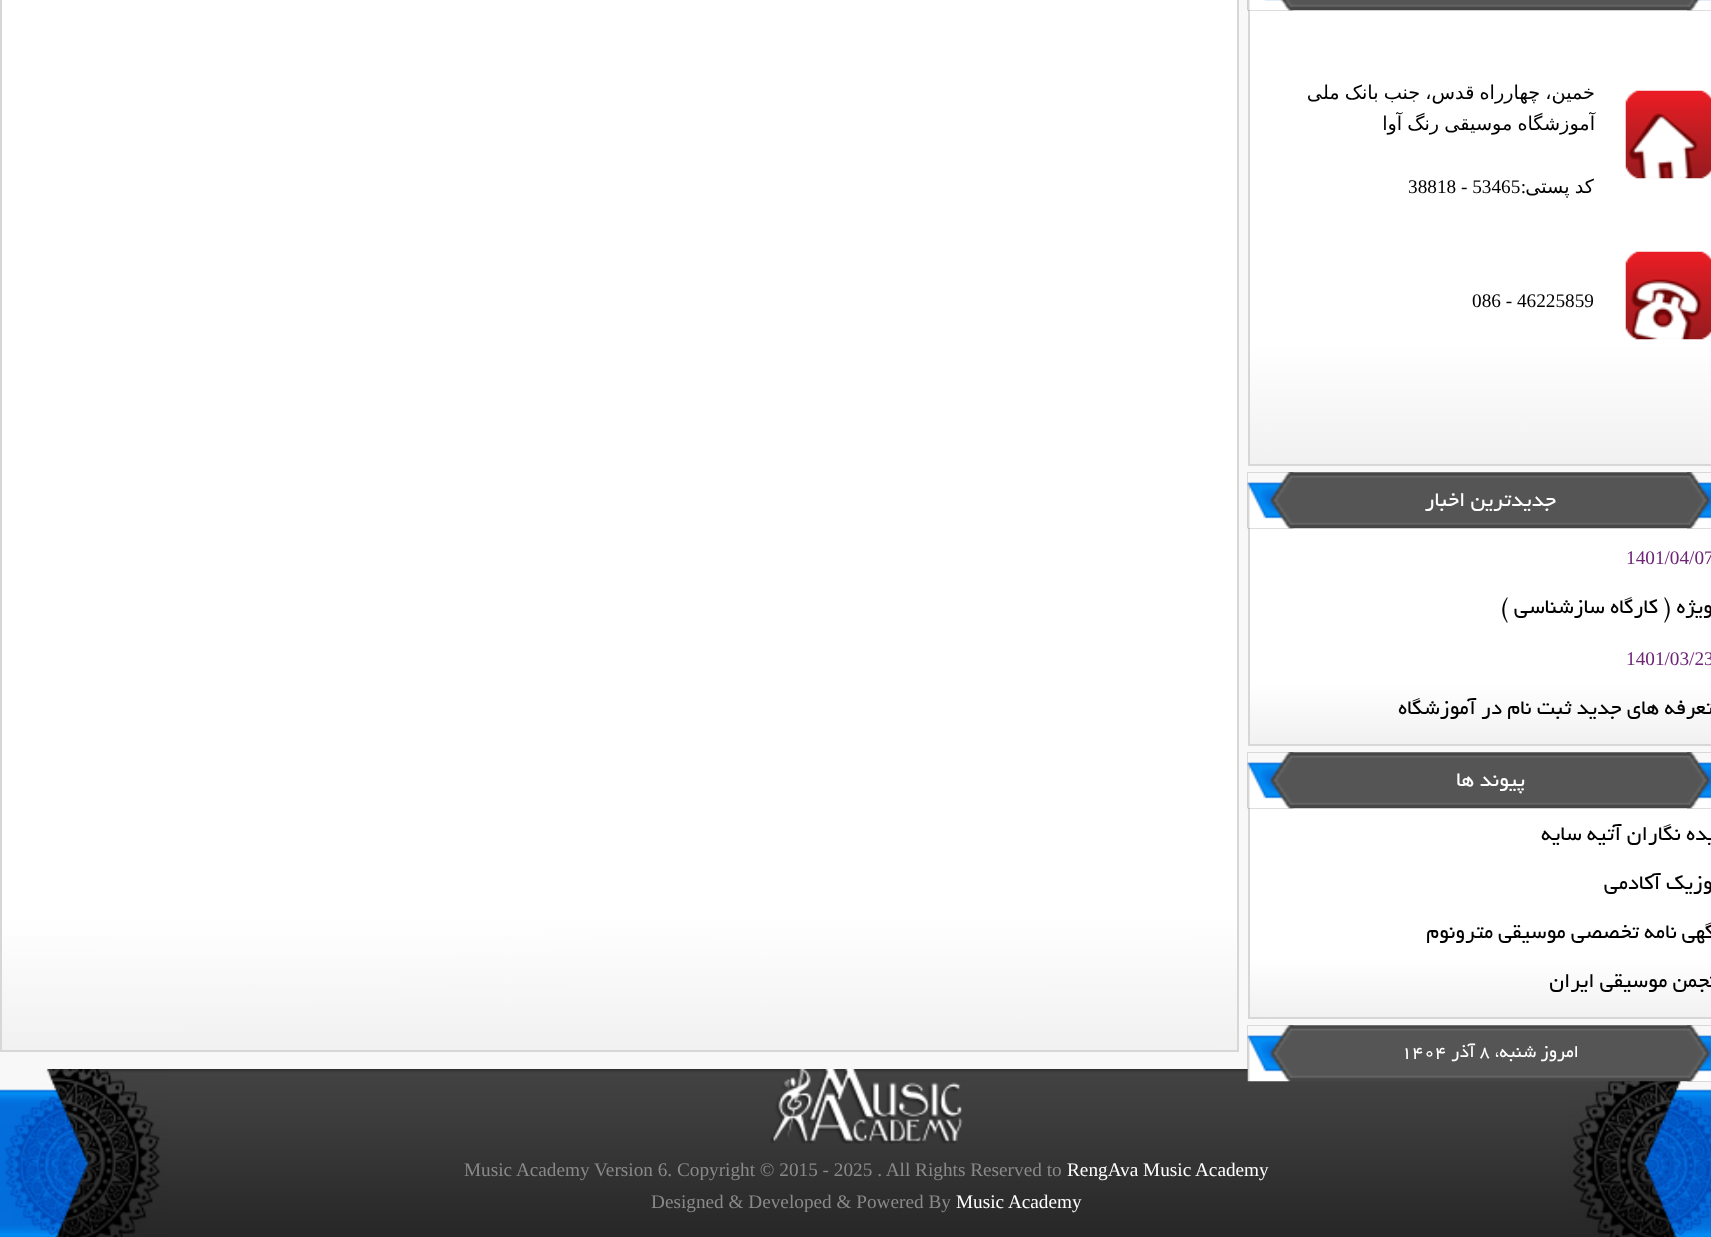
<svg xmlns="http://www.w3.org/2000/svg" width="1711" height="1237">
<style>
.a{font:19.25px DejaVu Sans;direction:rtl;fill:#000}
.b{font:19.25px Liberation Serif;direction:rtl;fill:#000}
.c{font:19.25px Liberation Serif;fill:#000}
.d{font:22.75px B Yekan;direction:rtl;fill:#fff}
.e{font:19.25px Liberation Serif;fill:#6e2578}
.f{font:22.75px B Yekan;direction:rtl;fill:#000}
.g{font:19.25px B Yekan;direction:rtl;fill:#fff}
.h{font:19.25px B Yekan;fill:#fff}
.i{font:19.25px Liberation Serif;fill:#fff}
.j{font:19.25px Liberation Serif;fill:#898989}
</style>
<defs>
<linearGradient id="g1" gradientUnits="userSpaceOnUse" x1="1490" y1="-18" x2="1490" y2="464"><stop offset="0.75" stop-color="#fff"/><stop offset="1" stop-color="#f1f1f1"/></linearGradient>
<linearGradient id="g2" gradientUnits="userSpaceOnUse" x1="1490" y1="501" x2="1490" y2="744"><stop offset="0.75" stop-color="#fff"/><stop offset="1" stop-color="#f1f1f1"/></linearGradient>
<linearGradient id="g3" gradientUnits="userSpaceOnUse" x1="1490" y1="781" x2="1490" y2="1017"><stop offset="0.75" stop-color="#fff"/><stop offset="1" stop-color="#f1f1f1"/></linearGradient>
<linearGradient id="g4" gradientUnits="userSpaceOnUse" x1="619" y1="-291" x2="620" y2="1050"><stop offset="0.9" stop-color="#fff"/><stop offset="1" stop-color="#f1f1f1"/></linearGradient>
</defs>
<rect width="100%" height="100%" fill="#f8f8f8"/>
<path fill="url(#g1)" d="M1250 10h461v454H1250z"/>
<path fill="none" stroke="#d7d7d7" stroke-width="2" d="M1249 -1h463v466H1249z"/>
<image href="1.png" x="1247" y="0" width="464" height="11"/>
<image href="2.png" x="1625" y="90" width="86" height="89"/>
<image href="3.png" x="1625" y="251" width="86" height="89"/>
<path fill="url(#g2)" d="M1250 528h461v216H1250z"/>
<path fill="none" stroke="#d7d7d7" stroke-width="2" d="M1249 500h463v245H1249z"/>
<image href="4.png" x="1247" y="472" width="464" height="57"/>
<path fill="url(#g3)" d="M1250 808h461v209H1250z"/>
<path fill="none" stroke="#d7d7d7" stroke-width="2" d="M1249 780h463v238H1249z"/>
<image href="4.png" x="1247" y="752" width="464" height="57"/>
<image href="6.png" x="0" y="1069" width="1711" height="168"/>
<image href="5.png" x="1247" y="1025" width="464" height="57"/>
<path fill="url(#g4)" d="M2 0h1235v1050H2z"/>
<path fill="none" stroke="#d7d7d7" stroke-width="2" d="M1 -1h1237v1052H1z"/>
<image href="7.png" x="770" y="1069" width="193" height="75"/>
<text class="a" x="1595" y="99" word-spacing="-1">خمین، چهارراه قدس، جنب بانک ملی</text>
<text class="a" x="1595" y="130" word-spacing="-1">آموزشگاه موسیقی رنگ آوا</text>
<text class="a" x="1594" y="193" word-spacing="-1">کد پستی</text>
<text class="b" x="1526" y="193">:</text>
<text class="c" x="1408" y="193">38818 - 53465</text>
<text class="c" x="1472" y="307">086 - 46225859</text>
<text class="d" x="1556" y="506">جدیدترین اخبار</text>
<text class="e" x="1626" y="564">1401/04/07</text>
<text class="f" x="1713" y="613">ویژه ( کارگاه سازشناسی )</text>
<text class="e" x="1626" y="665">1401/03/23</text>
<text class="f" x="1713" y="714">تعرفه های جدید ثبت نام در آموزشگاه</text>
<text class="d" x="1525" y="786">پیوند ها</text>
<text class="f" x="1722" y="840">ایده نگاران آتیه سایه</text>
<text class="f" x="1722" y="889">موزیک آکادمی</text>
<text class="f" x="1722" y="938">آگهی نامه تخصصی موسیقی مترونوم</text>
<text class="f" x="1722" y="987">انجمن موسیقی ایران</text>
<text class="g" x="1579" y="1057">امروز شنبه،</text>
<text class="h" x="1479" y="1057">8</text>
<text class="g" x="1475" y="1057">آذر</text>
<text class="h" x="1401" y="1057">1404</text>
<text class="i" x="1067" y="1176">RengAva Music Academy</text>
<text class="j" x="464" y="1176">Music Academy Version 6. Copyright © 2015 - 2025 . All Rights Reserved to</text>
<text class="i" x="956" y="1208">Music Academy</text>
<text class="j" x="651" y="1208">Designed &amp; Developed &amp; Powered By</text>
</svg>
